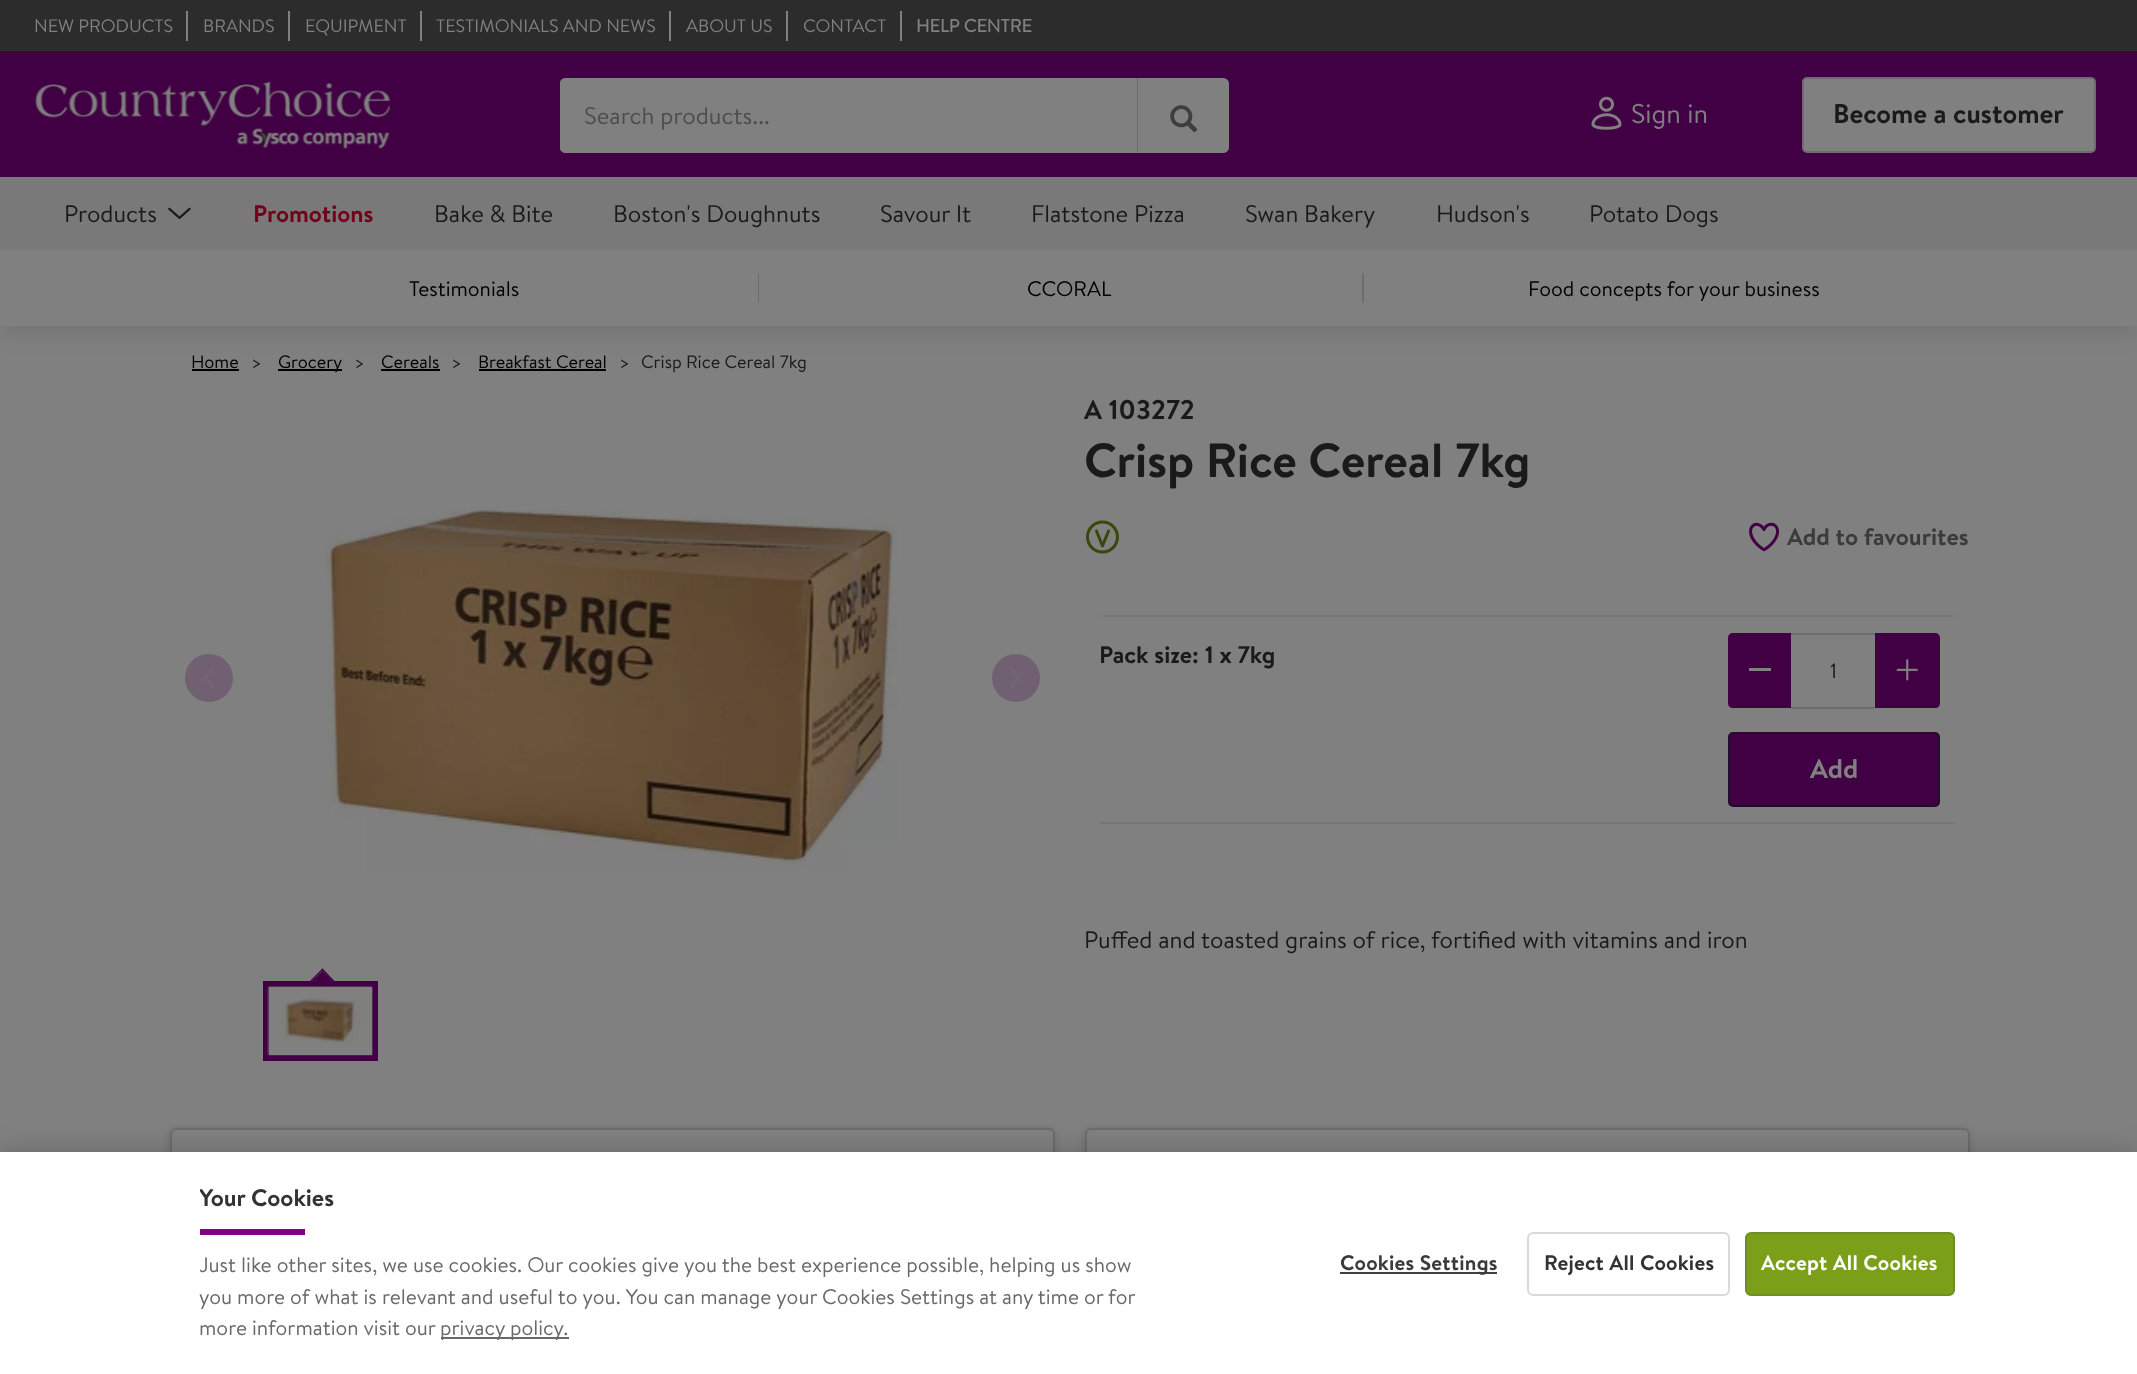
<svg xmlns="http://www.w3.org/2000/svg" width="2137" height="1374">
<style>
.a{font:18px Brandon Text;fill:#808080}
.b{font:bold 18px 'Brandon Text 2';fill:#808080}
.c{font:24px Brandon Text;fill:#4d4d4d}
.d{font:27px Brandon Text;fill:#808080}
.e{font:bold 27px Brandon Text;fill:#1a1a1a}
.f{font:24px Brandon Text;fill:#1a1a1a}
.g{font:bold 24px Brandon Text;fill:#72011a}
.h{font:21px Brandon Text;fill:#000}
.i{font:18px Brandon Text;fill:#000}
.j{font:18px Brandon Text;fill:#1a1a1a}
.k{font:bold 48px Brandon Text;fill:#1a1a1a}
.l{font:bold 24px Brandon Text;fill:#3b3b3b}
.m{font:bold 24px Brandon Text;fill:#1a1a1a}
.n{font:21px Brandon Text;fill:#1a1a1a}
.o{font:bold 27px Brandon Text;fill:#808080}
.p{font:bold 24px Brandon Text;fill:#333}
.q{font:21px Brandon Text;fill:#696969}
.r{font:bold 21px Brandon Text;letter-spacing:0.25px;fill:#3b3b3b}
.s{font:bold 21px Brandon Text;letter-spacing:0.25px;fill:#333}
.t{font:bold 21px Brandon Text;letter-spacing:0.25px;fill:#fff}
</style>
<defs>
<clipPath id="clip1"><path d="M200 1182h966v162H200z"/></clipPath>
</defs>
<rect width="100%" height="100%" fill="#808080"/>
<path fill="#2c2c2d" d="M0 0h2137v51H0z"/>
<path fill="#808080" d="M186 11h2v30H186z"/>
<path fill="#808080" d="M288 11h2v30H288z"/>
<path fill="#808080" d="M420 11h2v30H420z"/>
<path fill="#808080" d="M669 11h2v30H669z"/>
<path fill="#808080" d="M786 11h2v30H786z"/>
<path fill="#808080" d="M900 11h2v30H900z"/>
<path fill="#410043" d="M0 51h2137v126H0z"/>
<image href="1.png" x="35" y="81" width="355" height="68"/>
<path fill="#808080" d="M566 78h573v75h-573c-3.5 0-6-2.5-6-6v-63c0-3.5 2.5-6 6-6z"/>
<path fill="#808080" d="M566 78c-2 0-4 1-5 2l2 1l2-1h571l2-2z"/>
<path fill="#6d6d6d" d="M1138 78v74h-1v-72h-1z"/>
<path fill="#808080" d="M566 153h572l-1-1h-571c-2 0-3-1-4-2l-1 1c1 1 3 2 5 2z"/>
<path fill="#808080" d="M561 80c-1 1-1 3-1 4v63c0 1 0 3 1 4l1-1l-1-3v-63l2-3z"/>
<path fill="#808080" d="M1139 78h84c3.5 0 6 2.5 6 6v63c0 3.5-2.5 6-6 6h-84z"/>
<image href="2.png" x="1170" y="105" width="28" height="28"/>
<image href="3.png" x="1591" y="96" width="31" height="34"/>
<rect fill="#808080" stroke="#6d6d6d" stroke-width="2" x="1803" y="78" width="292" height="74" rx="4"/>
<path fill="#0000001a" filter="blur(11px)" d="M0 258h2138v75H0z"/>
<path fill="#797979" d="M0 177h2137v72H0z"/>
<image href="4.png" x="168" y="207" width="23" height="12"/>
<path fill="#808080" d="M0 251h2137v75H0z"/>
<path fill="#6d6d6d" d="M758 273h1v30H758z"/>
<path fill="#6d6d6d" d="M1362 273h2v30H1362z"/>
<path fill="#000" d="M192 369h47v2H192z"/>
<path fill="#000" d="M278 369h64v2H278z"/>
<path fill="#000" d="M381 369h59v2H381z"/>
<path fill="#000" d="M479 369h127v2H479z"/>
<circle fill="#706071" cx="209" cy="678" r="24"/>
<image href="5.png" x="203" y="668" width="11" height="20"/>
<image href="6.png" x="325" y="507" width="573" height="365"/>
<circle fill="#706071" cx="1016" cy="678" r="24"/>
<image href="7.png" x="1010" y="668" width="11" height="20"/>
<path fill="#410043" d="M322.5 994l-12-11.5l12-11.5l11.5 11.5z"/>
<path fill="#410043" d="M310.5 982.5l-1-1l13-13l1 1z"/>
<path fill="#410043" d="M334 982.5l-13-13l1.5-1l12.5 13z"/>
<path fill="#808080" d="M315 987h15v7H315z"/>
<path fill="none" stroke="#410043" stroke-width="6" d="M266 984h109v74H266z"/>
<image href="8.png" x="267" y="985" width="106" height="71"/>
<image href="9.png" x="1086" y="520" width="33" height="34"/>
<image href="10.png" x="1749" y="522" width="30" height="30"/>
<path fill="#777" d="M1100 615h855v2H1100z"/>
<path fill="#410043" d="M1733 633h58v75h-58c-3 0-5-2-5-5v-65c0-3 2-5 5-5z"/>
<path fill="#808080" d="M1749 668h22v3H1749z"/>
<path fill="#6d6d6d" d="M1791 633h84v2H1791z"/>
<path fill="#6d6d6d" d="M1791 707h84v2H1791z"/>
<path fill="#410043" d="M1875 633h60c3 0 5 2 5 5v65c0 3-2 5-5 5h-60z"/>
<image href="11.png" x="1896" y="659" width="22" height="22"/>
<rect fill="#410043" stroke="#250b2e" stroke-width="2" x="1729" y="733" width="210" height="73" rx="4"/>
<path fill="#777" d="M1100 822h855v2H1100z"/>
<rect fill="#0000001a" filter="blur(3px)" x="168" y="1128" width="888" height="111" rx="8"/>
<rect fill="#808080" stroke="#6d6d6d" stroke-width="2" x="171" y="1129" width="883" height="106" rx="5"/>
<rect fill="#0000001a" filter="blur(3px)" x="1083" y="1128" width="888" height="111" rx="8"/>
<rect fill="#808080" stroke="#6d6d6d" stroke-width="2" x="1086" y="1129" width="883" height="106" rx="5"/>
<path fill="#00000033" filter="blur(13.5px)" d="M0 1152h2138v222H0z"/>
<path fill="#fff" d="M0 1152h2137v222H0z"/>
<path fill="#820085" d="M200 1229h105v6H200z"/>
<path fill="#696969" d="M441 1337h128v2H441z"/>
<path fill="#404040" d="M1340 1272h157v2H1340z"/>
<rect fill="none" stroke="#d9d9d9" stroke-width="2" x="1528" y="1233" width="201" height="62" rx="5"/>
<rect fill="#7c9f19" stroke="#708d23" stroke-width="2" x="1746" y="1233" width="208" height="62" rx="5"/>
<text class="a" x="34" y="32">NEW PRODUCTS</text>
<text class="a" x="203" y="32">BRANDS</text>
<text class="a" x="305" y="32">EQUIPMENT</text>
<text class="a" x="436" y="32">TESTIMONIALS AND NEWS</text>
<text class="a" x="686" y="32">ABOUT US</text>
<text class="a" x="803" y="32">CONTACT</text>
<text class="b" x="916" y="32">HELP CENTRE</text>
<text class="c" x="584" y="124">Search products...</text>
<text class="d" x="1631" y="123">Sign in</text>
<text class="e" x="1833" y="123">Become a customer</text>
<text class="f" x="64" y="222">Products</text>
<text class="g" x="253" y="222">Promotions</text>
<text class="f" x="434" y="222">Bake &amp; Bite</text>
<text class="f" x="613" y="222">Boston's Doughnuts</text>
<text class="f" x="880" y="222">Savour It</text>
<text class="f" x="1031" y="222">Flatstone Pizza</text>
<text class="f" x="1245" y="222">Swan Bakery</text>
<text class="f" x="1436" y="222">Hudson's</text>
<text class="f" x="1589" y="222">Potato Dogs</text>
<text class="h" x="409" y="296">Testimonials</text>
<text class="h" x="1027" y="296">CCORAL</text>
<text class="h" x="1528" y="296">Food concepts for your business</text>
<text class="i" x="191" y="368">Home</text>
<text class="j" x="251" y="368">&gt;</text>
<text class="i" x="278" y="368">Grocery</text>
<text class="j" x="354" y="368">&gt;</text>
<text class="i" x="381" y="368">Cereals</text>
<text class="j" x="451" y="368">&gt;</text>
<text class="i" x="478" y="368">Breakfast Cereal</text>
<text class="j" x="619" y="368">&gt;</text>
<text class="j" x="641" y="368">Crisp Rice Cereal 7kg</text>
<text class="e" x="1084" y="419">A 103272</text>
<text class="k" x="1084" y="477">Crisp Rice Cereal 7kg</text>
<text class="l" x="1787" y="545">Add to favourites</text>
<text class="m" x="1099" y="663">Pack size: 1 x 7kg</text>
<text class="n" x="1830" y="678">1</text>
<text class="o" x="1810" y="778">Add</text>
<text class="f" x="1084" y="948">Puffed and toasted grains of rice, fortified with vitamins and iron</text>
<g clip-path="url(#clip1)">
<text class="p" x="199" y="1206">Your Cookies</text>
<text class="q" x="199" y="1272">Just like other sites, we use cookies. Our cookies give you the best experience possible, helping us show</text>
</g>
<text class="q" x="199" y="1304">you more of what is relevant and useful to you. You can manage your Cookies Settings at any time or for</text>
<text class="q" x="199" y="1335">more information visit our</text>
<text class="q" x="440" y="1335">privacy policy.</text>
<text class="r" x="1340" y="1270">Cookies Settings</text>
<text class="s" x="1544" y="1270">Reject All Cookies</text>
<text class="t" x="1761" y="1270">Accept All Cookies</text>
</svg>
